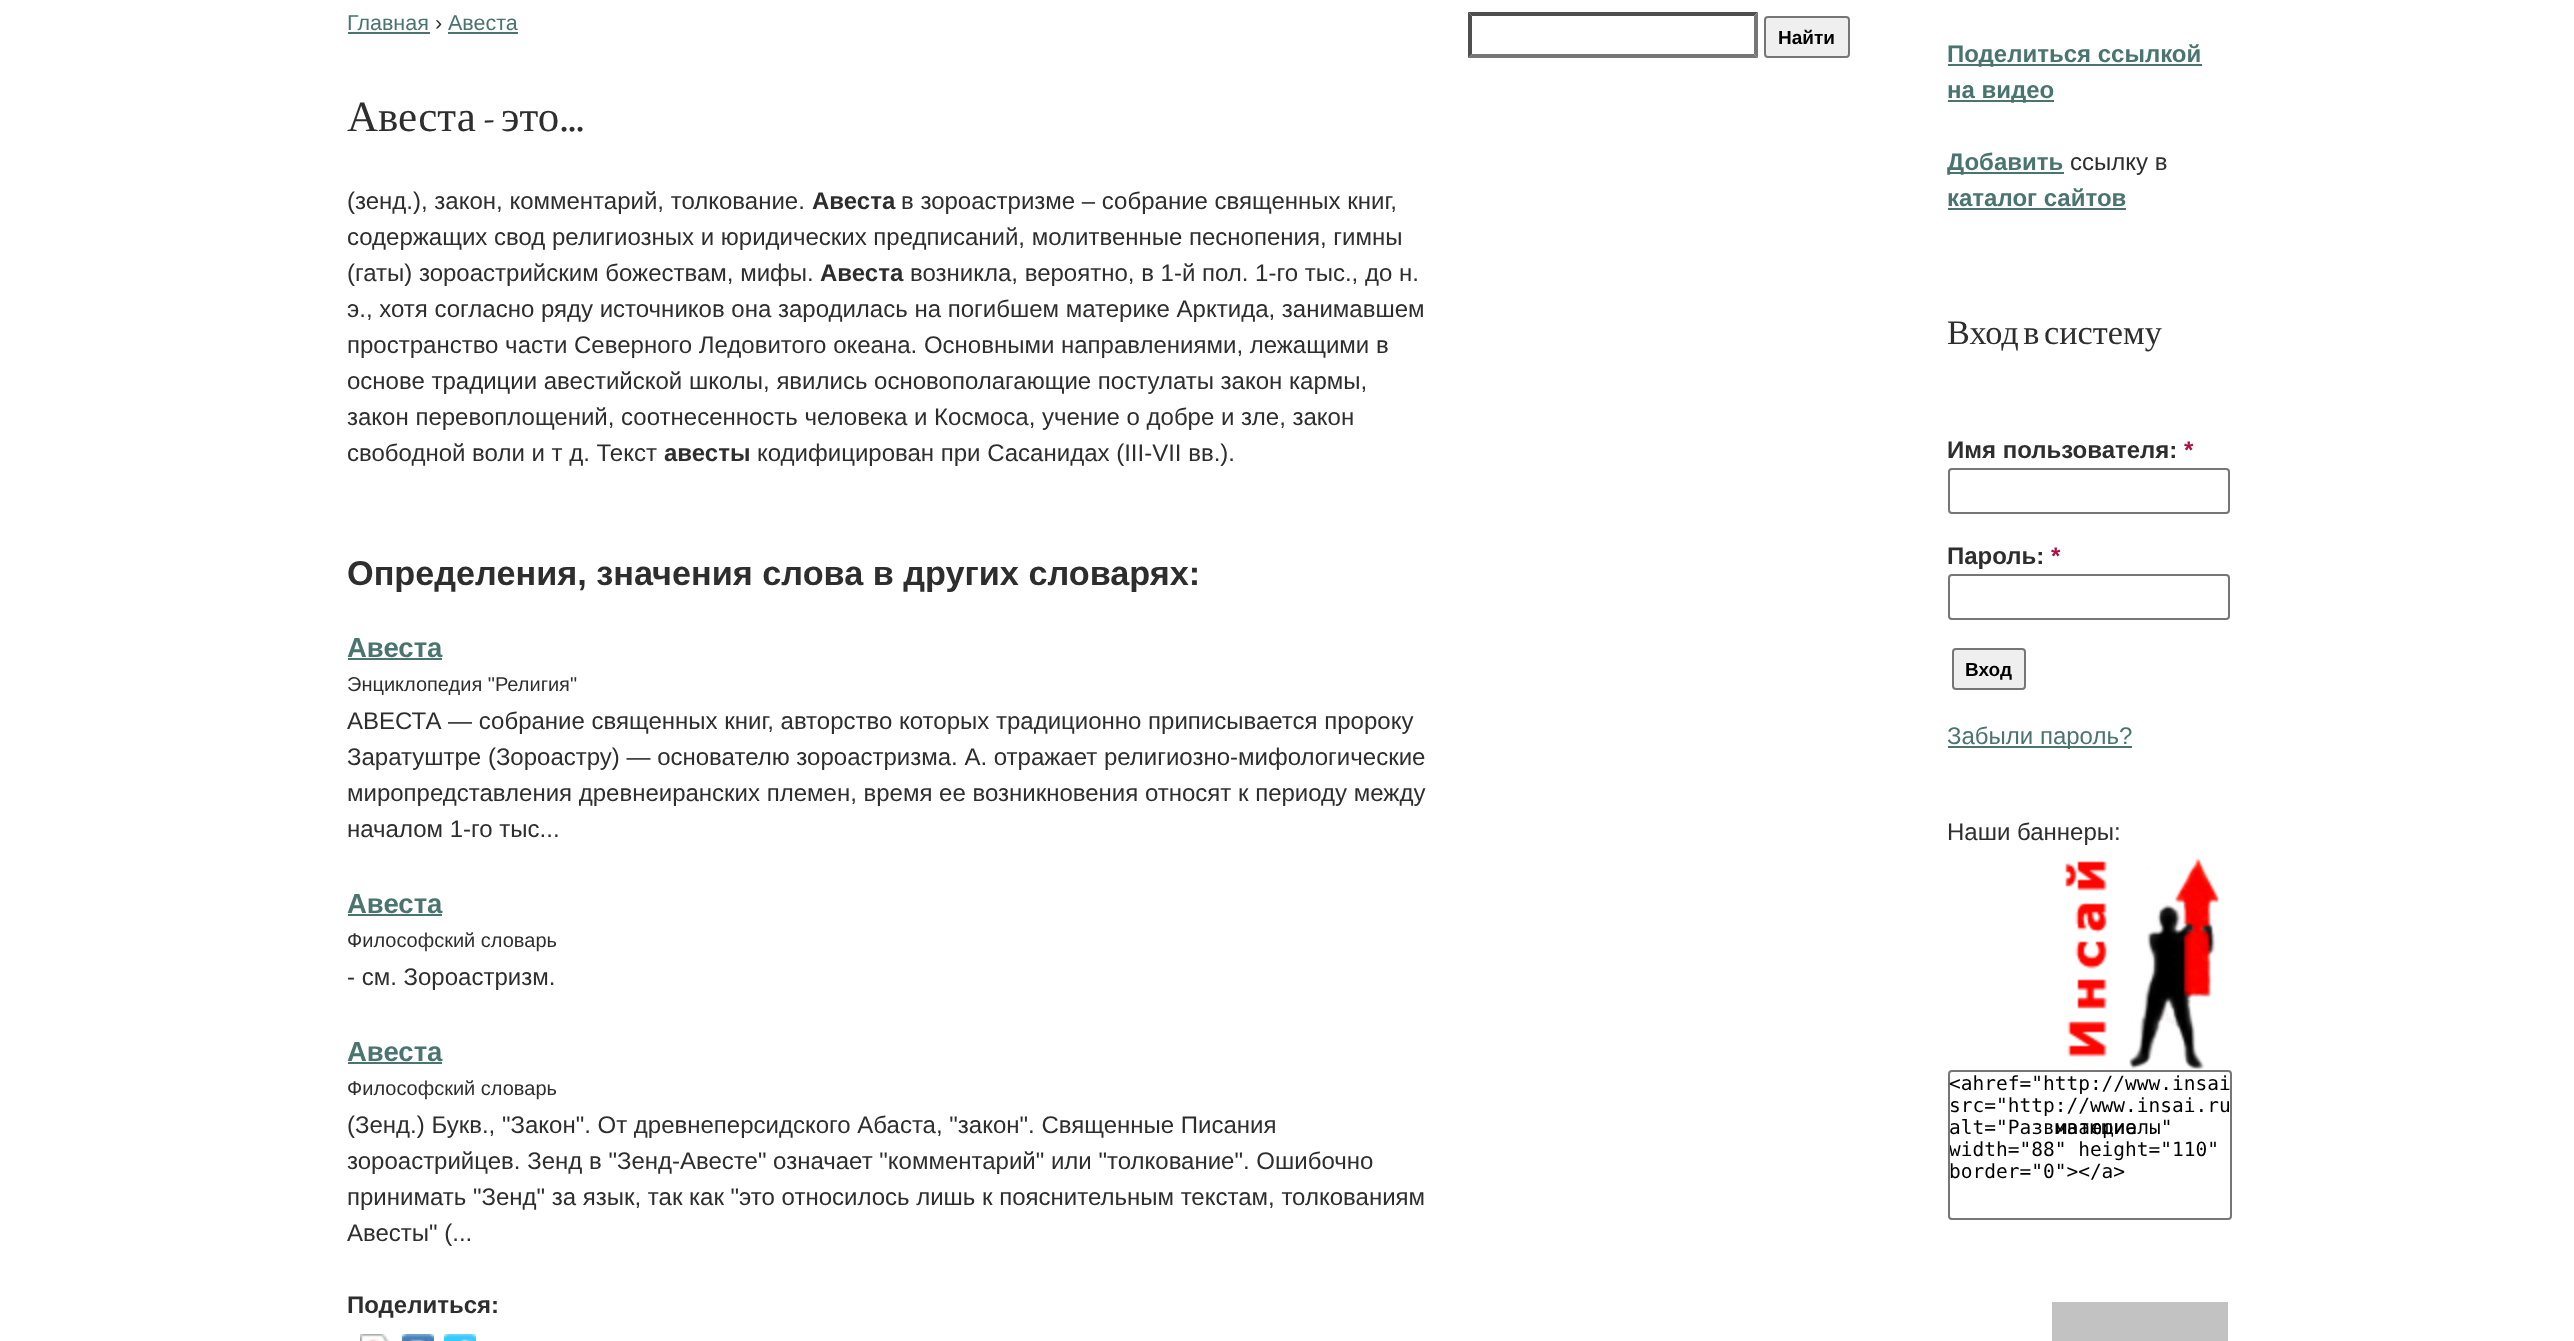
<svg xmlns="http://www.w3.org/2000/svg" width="2574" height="1341">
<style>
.a{font:21.5px Liberation Sans;fill:#4a7470}
.b{font:21.5px Liberation Sans;fill:#2e2e2e}
.c{font:43px Liberation Serif;fill:#2e2e2e}
.d{font:43px Neuton;fill:#2e2e2e}
.e{font:24px Liberation Sans;fill:#2e2e2e}
.f{font:bold 24px Liberation Sans;fill:#2e2e2e}
.g{font:bold 34.25px Liberation Sans;fill:#2e2e2e}
.h{font:bold 27.5px Liberation Sans;fill:#4a7470}
.i{font:20px Liberation Sans;fill:#2e2e2e}
.j{font:bold 19px Liberation Sans;fill:#000}
.k{font:bold 24px Liberation Sans;fill:#4a7470}
.l{font:34.25px Liberation Serif;fill:#2e2e2e}
.m{font:bold 24px Liberation Sans;fill:#a14}
.n{font:24px Liberation Sans;fill:#4a7470}
.o{font:19.5px DejaVu Sans Mono;fill:#000}
</style>
<defs>
<clipPath id="clip1"><path d="M1950 1072h280v146H1950z"/></clipPath>
</defs>
<rect width="100%" height="100%" fill="#fff"/>
<path fill="#4a7470" d="M348 32h82v2H348z"/>
<path fill="#4a7470" d="M448 32h70v2H448z"/>
<path fill="#4a7470" d="M348 658h94v2H348z"/>
<path fill="#4a7470" d="M348 914h94v2H348z"/>
<path fill="#4a7470" d="M348 1062h94v2H348z"/>
<image href="1.png" x="360" y="1334" width="29" height="7"/>
<image href="2.png" x="360" y="1334" width="29" height="7"/>
<image href="3.png" x="402" y="1334" width="32" height="7"/>
<image href="4.png" x="444" y="1334" width="32" height="7"/>
<path fill="#4f4f4f" d="M1468 12h290l-4 4h-282z"/>
<path fill="#767676" d="M1758 12v46l-4-4v-38z"/>
<path fill="#767676" d="M1758 58h-290l4-4h282z"/>
<path fill="#4f4f4f" d="M1468 58v-46l4 4v38z"/>
<rect fill="#efefef" stroke="#767676" stroke-width="2" x="1765" y="17" width="84" height="40" rx="3"/>
<path fill="#4a7470" d="M1948 64h254v2H1948z"/>
<path fill="#4a7470" d="M1948 100h106v2H1948z"/>
<path fill="#4a7470" d="M1948 172h116v2H1948z"/>
<path fill="#4a7470" d="M1948 208h178v2H1948z"/>
<rect fill="none" stroke="#767676" stroke-width="2" x="1949" y="469" width="280" height="44" rx="3"/>
<rect fill="none" stroke="#767676" stroke-width="2" x="1949" y="575" width="280" height="44" rx="3"/>
<rect fill="#efefef" stroke="#767676" stroke-width="2" x="1953" y="649" width="72" height="40" rx="3"/>
<path fill="#4a7470" d="M1948 746h184v2H1948z"/>
<image href="5.png" x="2065" y="857" width="154" height="213"/>
<rect fill="none" stroke="#767676" stroke-width="2" x="1949" y="1071" width="282" height="148" rx="3"/>
<path fill="#c2c2c2" d="M2052 1302h176v39H2052z"/>
<text class="a" x="347" y="30">Главная</text>
<text class="b" x="435" y="30">›</text>
<text class="a" x="448" y="30">Авеста</text>
<text class="c" x="347" y="131">Авеста</text>
<text class="d" x="483" y="131">-</text>
<text class="c" x="501" y="131">это</text>
<text class="d" x="560" y="131">...</text>
<text class="e" x="347" y="209">(зенд.), закон, комментарий, толкование.</text>
<text class="f" x="812" y="209">Авеста</text>
<text class="e" x="901" y="209">в зороастризме – собрание священных книг,</text>
<text class="e" x="347" y="245">содержащих свод религиозных и юридических предписаний, молитвенные песнопения, гимны</text>
<text class="e" x="347" y="281">(гаты) зороастрийским божествам, мифы.</text>
<text class="f" x="820" y="281">Авеста</text>
<text class="e" x="910" y="281">возникла, вероятно, в 1-й пол. 1-го тыс., до н.</text>
<text class="e" x="347" y="317">э., хотя согласно ряду источников она зародилась на погибшем материке Арктида, занимавшем</text>
<text class="e" x="347" y="353">пространство части Северного Ледовитого океана. Основными направлениями, лежащими в</text>
<text class="e" x="347" y="389">основе традиции авестийской школы, явились основополагающие постулаты закон кармы,</text>
<text class="e" x="347" y="425">закон перевоплощений, соотнесенность человека и Космоса, учение о добре и зле, закон</text>
<text class="e" x="347" y="461">свободной воли и т д. Текст</text>
<text class="f" x="664" y="461">авесты</text>
<text class="e" x="757" y="461">кодифицирован при Сасанидах (III-VII вв.).</text>
<text class="g" x="347" y="585">Определения, значения слова в других словарях:</text>
<text class="h" x="347" y="657">Авеста</text>
<text class="i" x="347" y="691">Энциклопедия "Религия"</text>
<text class="e" x="347" y="729">АВЕСТА — собрание священных книг, авторство которых традиционно приписывается пророку</text>
<text class="e" x="347" y="765">Заратуштре (Зороастру) — основателю зороастризма. А. отражает религиозно-мифологические</text>
<text class="e" x="347" y="801">миропредставления древнеиранских племен, время ее возникновения относят к периоду между</text>
<text class="e" x="347" y="837">началом 1-го тыс...</text>
<text class="h" x="347" y="913">Авеста</text>
<text class="i" x="347" y="947">Философский словарь</text>
<text class="e" x="347" y="985">- см. Зороастризм.</text>
<text class="h" x="347" y="1061">Авеста</text>
<text class="i" x="347" y="1095">Философский словарь</text>
<text class="e" x="347" y="1133">(Зенд.) Букв., "Закон". От древнеперсидского Абаста, "закон". Священные Писания</text>
<text class="e" x="347" y="1169">зороастрийцев. Зенд в "Зенд-Авесте" означает "комментарий" или "толкование". Ошибочно</text>
<text class="e" x="347" y="1205">принимать "Зенд" за язык, так как "это относилось лишь к пояснительным текстам, толкованиям</text>
<text class="e" x="347" y="1241">Авесты" (...</text>
<text class="f" x="347" y="1313">Поделиться:</text>
<text class="j" x="1778" y="44">Найти</text>
<text class="k" x="1947" y="62">Поделиться ссылкой</text>
<text class="k" x="1947" y="98">на видео</text>
<text class="k" x="1947" y="170">Добавить</text>
<text class="e" x="2070" y="170">ссылку в</text>
<text class="k" x="1947" y="206">каталог сайтов</text>
<text class="l" x="1947" y="344" word-spacing="-4">Вход в систему</text>
<text class="f" x="1947" y="458">Имя пользователя:</text>
<text class="m" x="2184" y="458">*</text>
<text class="f" x="1947" y="564">Пароль:</text>
<text class="m" x="2051" y="564">*</text>
<text class="j" x="1965" y="676">Вход</text>
<text class="n" x="1947" y="744">Забыли пароль?</text>
<text class="e" x="1947" y="840">Наши баннеры:</text>
<text class="o" x="1949" y="1090">&lt;ahref="http://www.insai</text>
<text class="o" x="1949" y="1112">src="http://www.insai.ru</text>
<text class="o" x="1949" y="1134">alt="Развивающие</text>
<text class="o" x="2055" y="1134">материалы"</text>
<g clip-path="url(#clip1)">
<text class="o" x="1949" y="1156">width="88" height="110"</text>
</g>
<text class="o" x="1949" y="1178">border="0"&gt;&lt;/a&gt;</text>
</svg>
